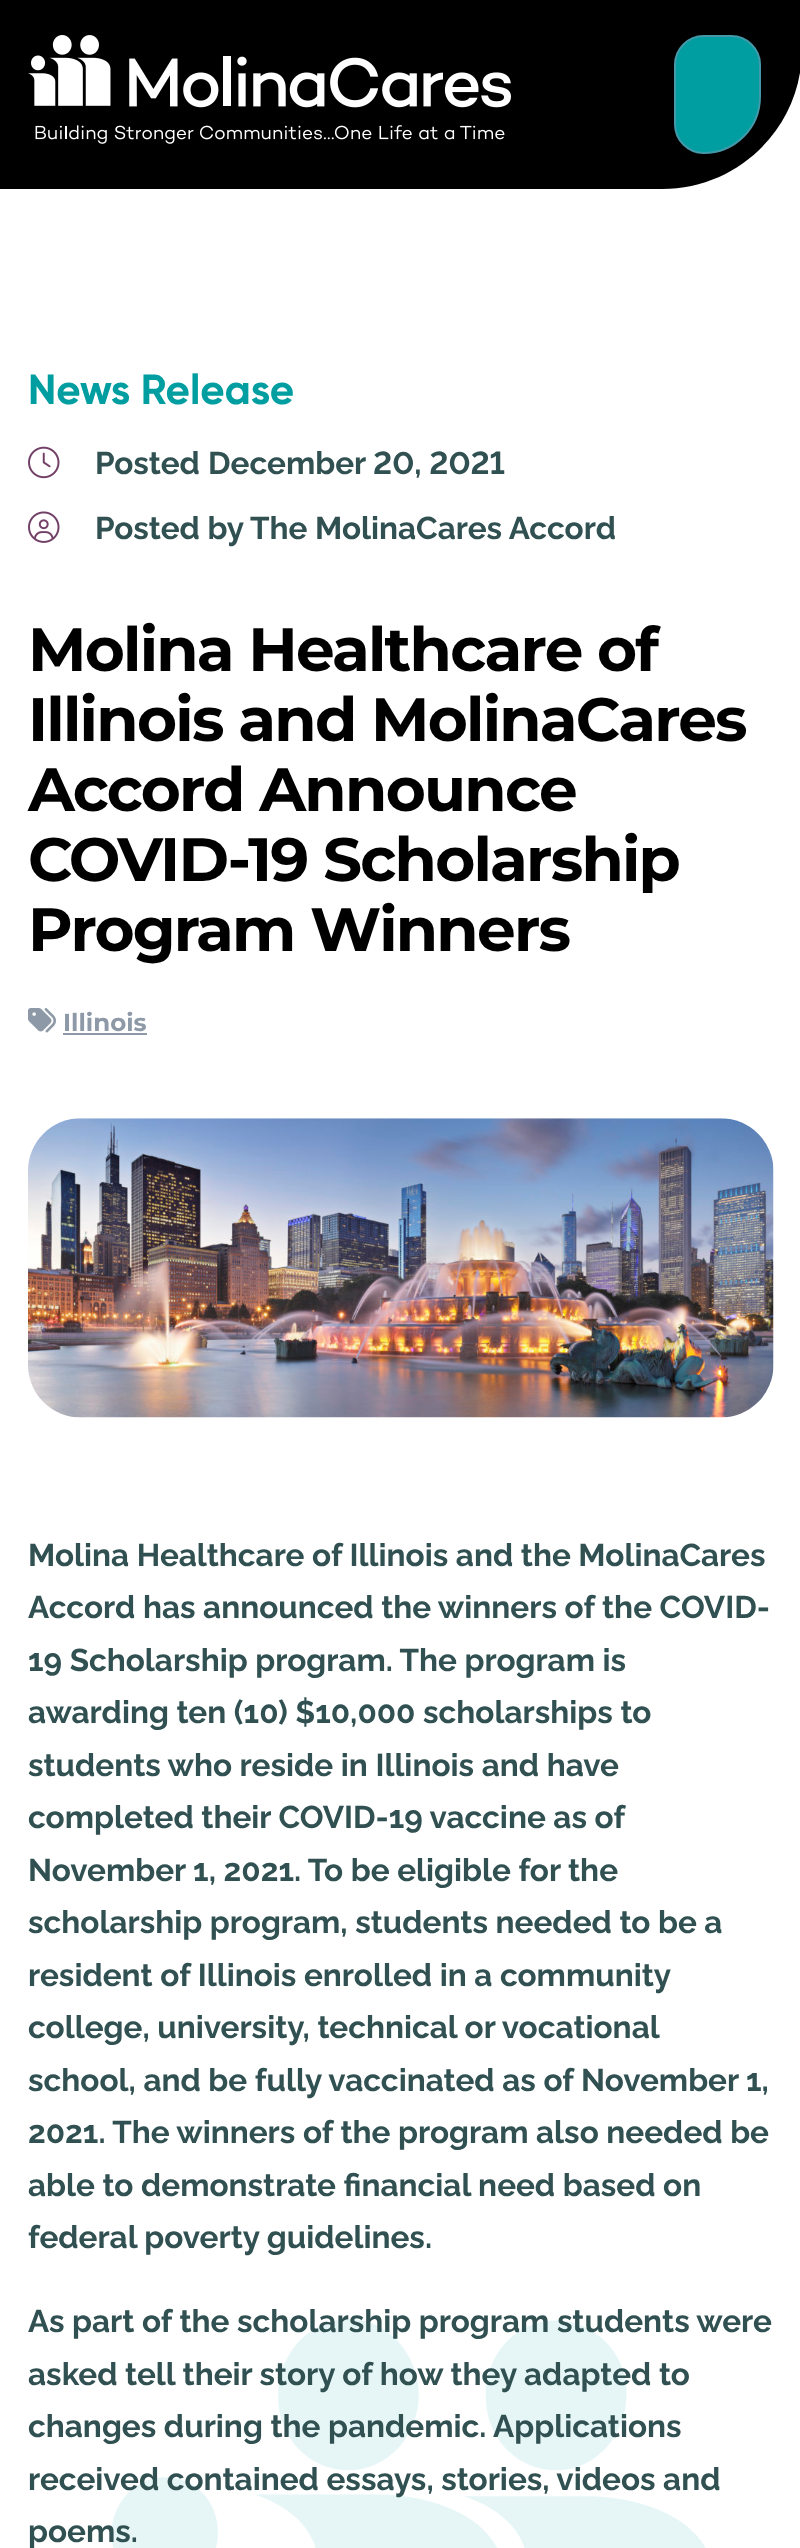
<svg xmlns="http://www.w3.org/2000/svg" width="800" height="2548">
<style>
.a{font:bold 42px Gilroy;fill:#009ea0}
.b{font:bold 31.5px Raleway;fill:#315051}
.c{font:bold 31.5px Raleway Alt;fill:#315051}
.d{font:bold 61.25px Montserrat;letter-spacing:-1.8px;fill:#000}
.e{font:bold 24.5px Montserrat;fill:#8e99a8}
</style>
<rect width="100%" height="100%" fill="#fff"/>
<path fill="#000" d="M0 0h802v49c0 77.5-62.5 140-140 140h-662z"/>
<image href="1.png" x="28" y="35" width="483" height="109"/>
<path fill="#009ea0" stroke="#4499a9" stroke-width="2" d="M703.5 36h28c15.5 0 28.5 13 28.5 28.5v32c0 31.5-25 56.5-56.5 56.5c-15.5 0-28.5-13-28.5-28.5v-60c0-15.5 13-28.5 28.5-28.5z"/>
<image href="2.png" x="28" y="446" width="32" height="33"/>
<image href="3.png" x="28" y="511" width="32" height="32"/>
<image href="4.png" x="28" y="1008" width="28" height="25"/>
<path fill="#8e99a8" d="M63 1033h84v2H63z"/>
<image href="5.png" x="28" y="1118" width="746" height="300"/>
<image href="6.png" x="111" y="2319" width="595" height="229"/>
<text class="a" x="28" y="404">News Release</text>
<text class="b" x="95" y="474">Posted</text>
<text class="c" x="208" y="474">December 20, 2021</text>
<text class="b" x="95" y="539">Posted by</text>
<text class="b" x="250" y="539">The MolinaCares Accord</text>
<text class="d" x="28" y="671">Molina Healthcare of</text>
<text class="d" x="28" y="741">Illinois and MolinaCares</text>
<text class="d" x="28" y="811">Accord Announce</text>
<text class="d" x="28" y="881">COVID-19 Scholarship</text>
<text class="d" x="28" y="951">Program Winners</text>
<text class="e" x="63" y="1031">Illinois</text>
<text class="b" x="28" y="1566">Molina Healthcare of Illinois and the MolinaCares</text>
<text class="b" x="28" y="1618">Accord has announced the winners of the COVID-</text>
<text class="b" x="28" y="1671">19 Scholarship program. The program is</text>
<text class="b" x="28" y="1723">awarding ten (10) $10,000 scholarships to</text>
<text class="b" x="28" y="1776">students who reside in Illinois and have</text>
<text class="b" x="28" y="1828">completed their COVID-19 vaccine as of</text>
<text class="b" x="28" y="1881">November 1, 2021. To be eligible for the</text>
<text class="b" x="28" y="1933">scholarship program, students needed to be a</text>
<text class="b" x="28" y="1986">resident of Illinois enrolled in a community</text>
<text class="b" x="28" y="2038">college, university, technical or vocational</text>
<text class="b" x="28" y="2091">school, and be fully vaccinated as of November 1,</text>
<text class="b" x="28" y="2143">2021. The winners of the program also needed be</text>
<text class="b" x="28" y="2196">able to demonstrate financial need based on</text>
<text class="b" x="28" y="2248">federal poverty guidelines.</text>
<text class="b" x="28" y="2332">As part of the scholarship program students were</text>
<text class="b" x="28" y="2385">asked tell their story of how they adapted to</text>
<text class="b" x="28" y="2437">changes during the pandemic. Applications</text>
<text class="b" x="28" y="2490">received contained essays, stories, videos and</text>
<text class="b" x="28" y="2542">poems.</text>
</svg>
